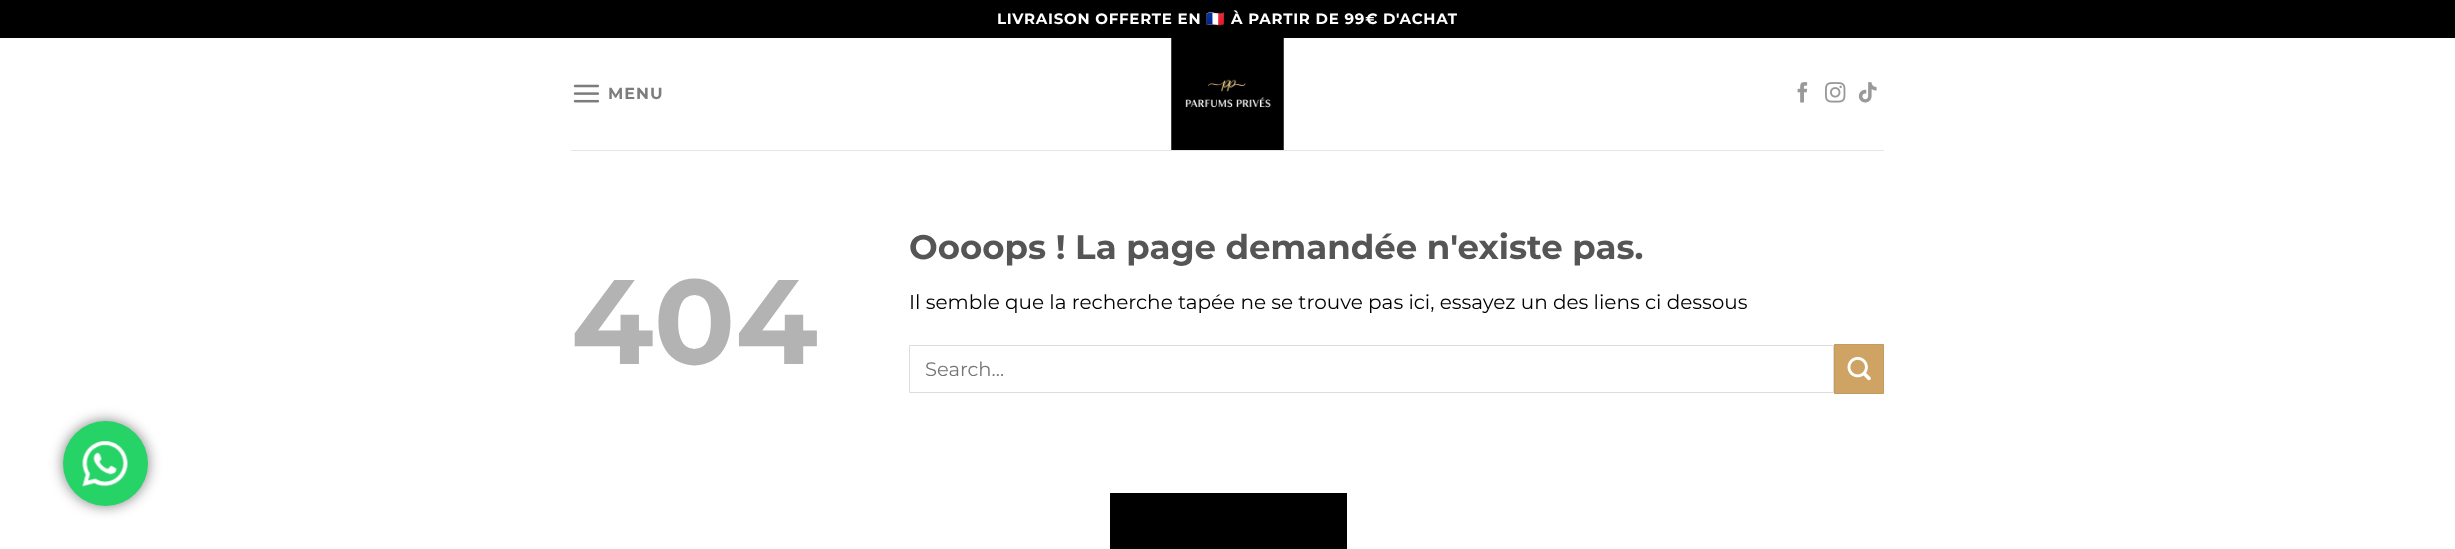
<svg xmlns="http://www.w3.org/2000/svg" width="2455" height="549">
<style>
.a{font:bold 15px Montserrat;letter-spacing:0.75px;fill:#fff}
.b{font:bold 15px Noto Color Emoji;letter-spacing:0.75px;fill:#fff}
.c{font:bold 16px Montserrat;letter-spacing:1px;fill:#7d7d7d}
.d{font:bold 120px Montserrat;fill:#b3b3b3}
.e{font:bold 34px Montserrat;fill:#555}
.f{font:20px Montserrat;fill:#000}
.g{font:19.5px Montserrat;fill:#757575}
</style>
<rect width="100%" height="100%" fill="#fff"/>
<path fill="#000" d="M0 0h2455v38H0z"/>
<image href="1.png" x="573" y="84" width="27" height="19"/>
<image href="2.png" x="1171" y="38" width="113" height="112"/>
<image href="3.png" x="1797" y="82" width="11" height="21"/>
<image href="4.png" x="1825" y="82" width="21" height="21"/>
<image href="5.png" x="1858" y="82" width="19" height="21"/>
<path fill="#e6e6e6" d="M571 150h1313v1H571z"/>
<path fill="none" stroke="#ddd" d="M909.5 345.5h924v47H909.5z"/>
<path fill="#cea363" stroke="#c49b5e" d="M1834.5 344.5h49v49H1834.5z"/>
<image href="6.png" x="1847" y="356" width="24" height="25"/>
<path fill="#000" d="M1110 493h237v56H1110z"/>
<rect fill="#00000080" filter="blur(7px)" x="63" y="421" width="85" height="85" rx="42.5"/>
<circle fill="#25d366" cx="105.5" cy="463.5" r="42.5"/>
<image href="7.png" x="82" y="441" width="46" height="46"/>
<text class="a" x="997" y="24">LIVRAISON OFFERTE EN</text>
<text class="b" x="1206" y="24">🇫🇷</text>
<text class="a" x="1231" y="24">À PARTIR DE 99€ D'ACHAT</text>
<text class="c" x="608" y="99">MENU</text>
<text class="d" x="571" y="364">404</text>
<text class="e" x="909" y="259">Oooops ! La page demandée n'existe pas.</text>
<text class="f" x="909" y="309">Il semble que la recherche tapée ne se trouve pas ici, essayez un des liens ci dessous</text>
<text class="g" x="925" y="376">Search…</text>
</svg>
